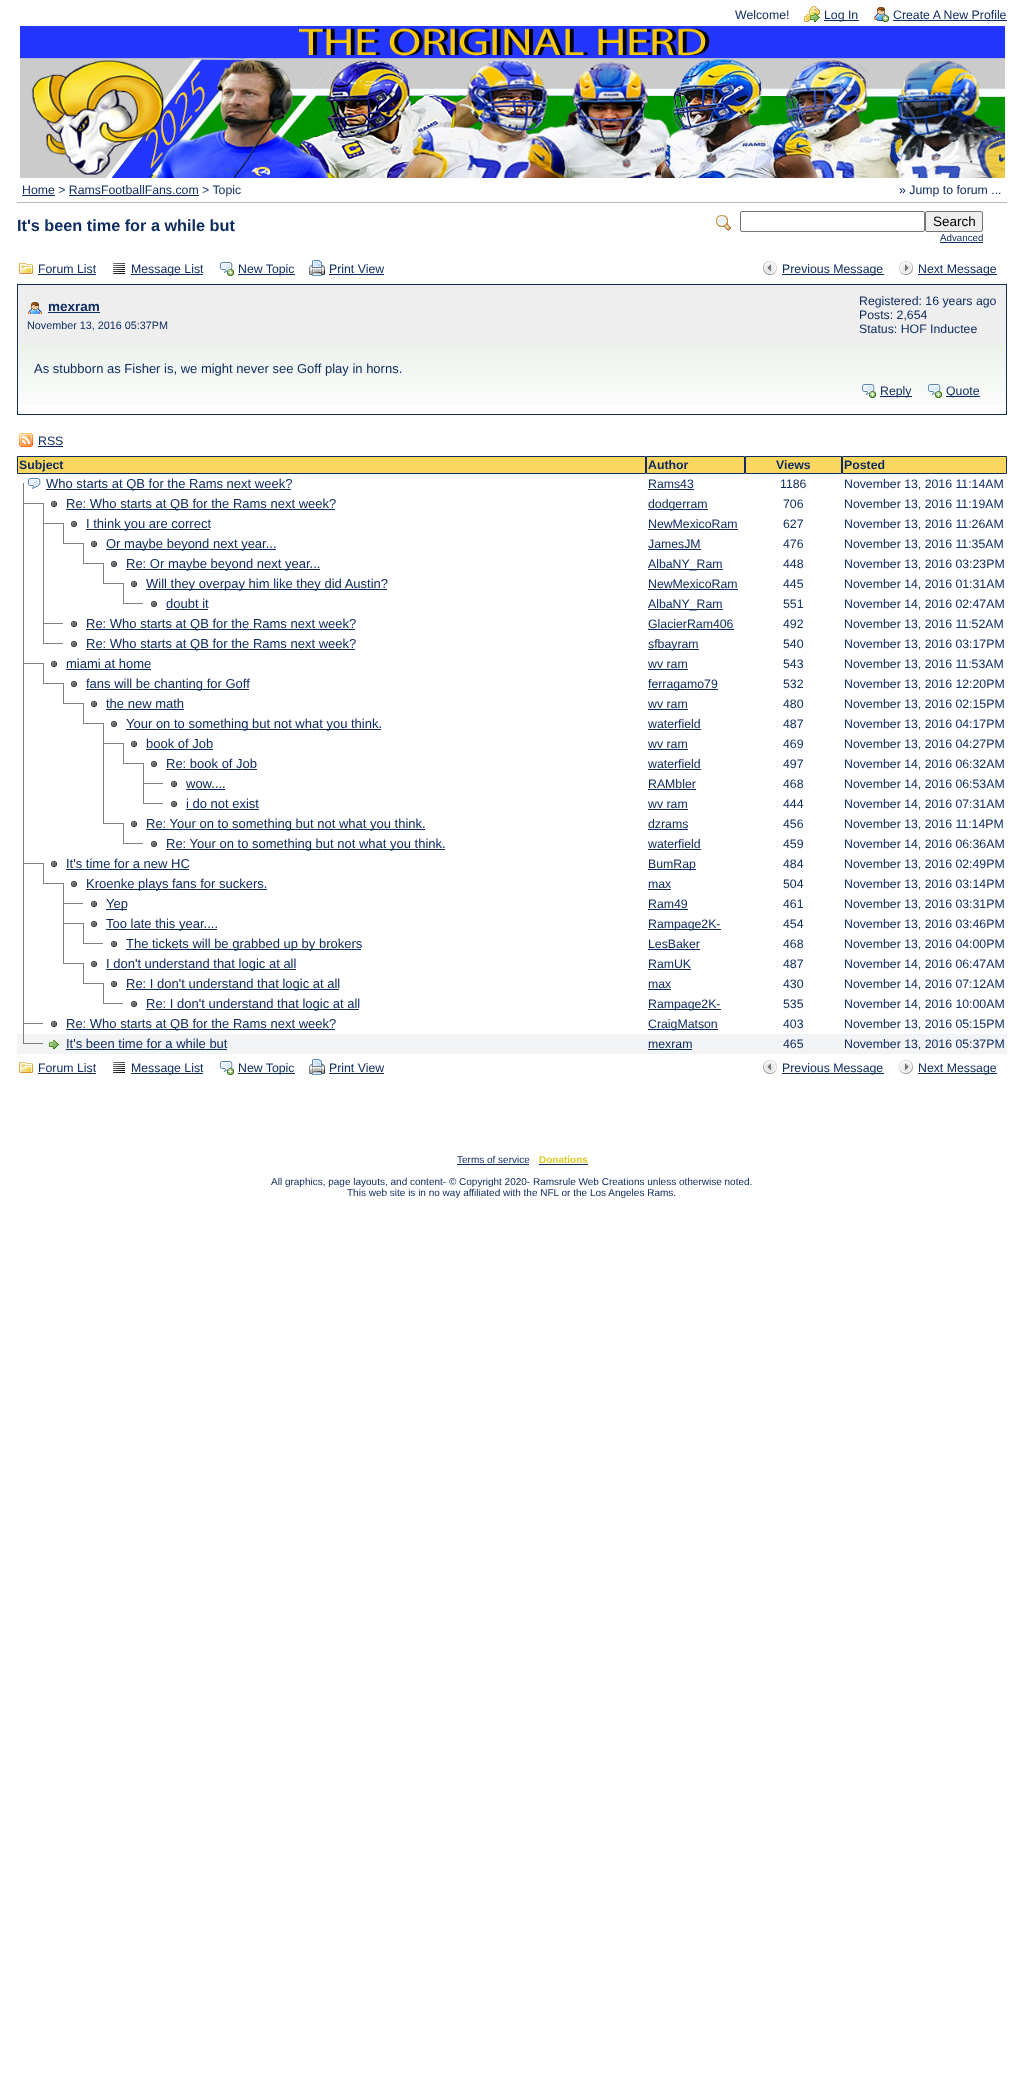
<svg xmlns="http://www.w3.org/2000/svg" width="1024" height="2073">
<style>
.a{font:12.3px Liberation Sans;fill:#0f2c60}
.b{font:bold 16.25px Liberation Sans;fill:#0f2c60}
.c{font:13.5px Liberation Sans;fill:#000}
.d{font:9.75px Liberation Sans;fill:#0f2c60}
.e{font:bold 13.5px Liberation Sans;fill:#0f2c60}
.f{font:10.8px Liberation Sans;fill:#0f2c60}
.g{font:13px Liberation Sans;fill:#0f2c60}
.h{font:bold 12.3px Liberation Sans;fill:#0f2c60}
.i{font:10px Liberation Sans;fill:#0f2c60}
.j{font:bold 10px Liberation Sans;fill:#d9cb25}
</style>
<rect width="100%" height="100%" fill="#fff"/>
<image href="1.png" x="804" y="6" width="16" height="16"/>
<path fill="#0f2c60" d="M824 20h35v1H824z"/>
<image href="2.png" x="874" y="7" width="15" height="15"/>
<path fill="#0f2c60" d="M893 20h114v1H893z"/>
<image href="3.png" x="20" y="26" width="985" height="152"/>
<path fill="#b6b6b6" d="M17 202h990v1H17z"/>
<path fill="#0f2c60" d="M22 195h33v1H22z"/>
<path fill="#0f2c60" d="M69 195h130v1H69z"/>
<image href="4.png" x="716" y="215" width="16" height="16"/>
<rect fill="none" stroke="#767676" x="740.5" y="211.5" width="184" height="20" rx="1.5"/>
<rect fill="#efefef" stroke="#767676" x="925.5" y="211.5" width="57" height="20" rx="1.5"/>
<path fill="#0f2c60" d="M940 242h43v1H940z"/>
<image href="5.png" x="19" y="263" width="14" height="11"/>
<path fill="#0f2c60" d="M38 274h58v1H38z"/>
<image href="6.png" x="113" y="263" width="12" height="11"/>
<path fill="#0f2c60" d="M131 274h72v1H131z"/>
<image href="7.png" x="219" y="262" width="15" height="14"/>
<path fill="#0f2c60" d="M238 274h57v1H238z"/>
<image href="8.png" x="309" y="260" width="16" height="16"/>
<path fill="#0f2c60" d="M329 274h55v1H329z"/>
<image href="9.png" x="763" y="261" width="14" height="14"/>
<path fill="#0f2c60" d="M782 274h102v1H782z"/>
<image href="10.png" x="899" y="261" width="14" height="14"/>
<path fill="#0f2c60" d="M918 274h79v1H918z"/>
<path fill="#eee" d="M18 285h988v60H18z"/>
<path fill="#0f2c60" d="M17 284h990v1H17z"/>
<path fill="#0f2c60" d="M1006 284h1v61H1006z"/>
<path fill="#0f2c60" d="M17 284h1v61H17z"/>
<image href="11.png" x="28" y="302" width="14" height="12"/>
<path fill="#0f2c60" d="M48 312h52v1H48z"/>
<image href="12.png" x="18" y="345" width="988" height="61"/>
<path fill="#0f2c60" d="M1006 345h1v70H1006z"/>
<path fill="#0f2c60" d="M17 414h990v1H17z"/>
<path fill="#0f2c60" d="M17 345h1v70H17z"/>
<image href="13.png" x="861" y="384" width="15" height="14"/>
<path fill="#0f2c60" d="M880 396h32v1H880z"/>
<image href="13.png" x="927" y="384" width="15" height="14"/>
<path fill="#0f2c60" d="M946 396h34v1H946z"/>
<image href="14.png" x="19" y="433" width="14" height="14"/>
<path fill="#0f2c60" d="M38 446h25v1H38z"/>
<path fill="#fcd75f" stroke="#0f2c60" d="M17.5 456.5h628v17H17.5z"/>
<path fill="#fcd75f" stroke="#0f2c60" d="M646.5 456.5h98v17H646.5z"/>
<path fill="#fcd75f" stroke="#0f2c60" d="M745.5 456.5h96v17H745.5z"/>
<path fill="#fcd75f" stroke="#0f2c60" d="M842.5 456.5h164v17H842.5z"/>
<image href="15.png" x="27" y="478" width="14" height="11"/>
<path fill="#0f2c60" d="M46 489h245v1H46z"/>
<path fill="#0f2c60" d="M648 489h46v1H648z"/>
<path fill="#f2f3f4" d="M17 1034h990v20H17z"/>
<path fill="#808080" d="M23 483h1v560H23z"/>
<path fill="#808080" d="M23 503h20v1H23z"/>
<image href="16.png" x="51" y="501" width="6" height="6"/>
<path fill="#0f2c60" d="M66 509h269v1H66z"/>
<path fill="#0f2c60" d="M648 509h60v1H648z"/>
<path fill="#808080" d="M43 503h1v140H43z"/>
<path fill="#808080" d="M43 523h20v1H43z"/>
<image href="16.png" x="71" y="521" width="6" height="6"/>
<path fill="#0f2c60" d="M86 529h124v1H86z"/>
<path fill="#0f2c60" d="M648 529h90v1H648z"/>
<path fill="#808080" d="M63 523h1v20H63z"/>
<path fill="#808080" d="M63 543h20v1H63z"/>
<image href="16.png" x="91" y="541" width="6" height="6"/>
<path fill="#0f2c60" d="M106 549h170v1H106z"/>
<path fill="#0f2c60" d="M648 549h53v1H648z"/>
<path fill="#808080" d="M83 543h1v20H83z"/>
<path fill="#808080" d="M83 563h20v1H83z"/>
<image href="16.png" x="111" y="561" width="6" height="6"/>
<path fill="#0f2c60" d="M126 569h194v1H126z"/>
<path fill="#0f2c60" d="M648 569h75v1H648z"/>
<path fill="#808080" d="M103 563h1v20H103z"/>
<path fill="#808080" d="M103 583h20v1H103z"/>
<image href="16.png" x="131" y="581" width="6" height="6"/>
<path fill="#0f2c60" d="M146 589h241v1H146z"/>
<path fill="#0f2c60" d="M648 589h90v1H648z"/>
<path fill="#808080" d="M123 583h1v20H123z"/>
<image href="16.png" x="151" y="601" width="6" height="6"/>
<path fill="#0f2c60" d="M166 609h42v1H166z"/>
<path fill="#808080" d="M123 603h20v1H123z"/>
<path fill="#0f2c60" d="M648 609h75v1H648z"/>
<path fill="#808080" d="M43 623h20v1H43z"/>
<image href="16.png" x="71" y="621" width="6" height="6"/>
<path fill="#0f2c60" d="M86 629h269v1H86z"/>
<path fill="#0f2c60" d="M648 629h86v1H648z"/>
<path fill="#808080" d="M43 643h20v1H43z"/>
<image href="16.png" x="71" y="641" width="6" height="6"/>
<path fill="#0f2c60" d="M86 649h269v1H86z"/>
<path fill="#0f2c60" d="M648 649h51v1H648z"/>
<path fill="#808080" d="M23 663h20v1H23z"/>
<image href="16.png" x="51" y="661" width="6" height="6"/>
<path fill="#0f2c60" d="M66 669h85v1H66z"/>
<path fill="#0f2c60" d="M648 669h40v1H648z"/>
<path fill="#808080" d="M43 663h1v20H43z"/>
<path fill="#808080" d="M43 683h20v1H43z"/>
<image href="16.png" x="71" y="681" width="6" height="6"/>
<path fill="#0f2c60" d="M86 689h163v1H86z"/>
<path fill="#0f2c60" d="M648 689h70v1H648z"/>
<path fill="#808080" d="M63 683h1v20H63z"/>
<image href="16.png" x="91" y="701" width="6" height="6"/>
<path fill="#0f2c60" d="M106 709h78v1H106z"/>
<path fill="#808080" d="M63 703h20v1H63z"/>
<path fill="#0f2c60" d="M648 709h40v1H648z"/>
<path fill="#808080" d="M83 703h1v20H83z"/>
<path fill="#808080" d="M83 723h20v1H83z"/>
<image href="16.png" x="111" y="721" width="6" height="6"/>
<path fill="#0f2c60" d="M126 729h255v1H126z"/>
<path fill="#0f2c60" d="M648 729h53v1H648z"/>
<path fill="#808080" d="M103 723h1v100H103z"/>
<path fill="#808080" d="M103 743h20v1H103z"/>
<image href="16.png" x="131" y="741" width="6" height="6"/>
<path fill="#0f2c60" d="M146 749h67v1H146z"/>
<path fill="#0f2c60" d="M648 749h40v1H648z"/>
<path fill="#808080" d="M123 743h1v20H123z"/>
<image href="16.png" x="151" y="761" width="6" height="6"/>
<path fill="#0f2c60" d="M166 769h91v1H166z"/>
<path fill="#808080" d="M123 763h20v1H123z"/>
<path fill="#0f2c60" d="M648 769h53v1H648z"/>
<path fill="#808080" d="M143 763h1v40H143z"/>
<path fill="#808080" d="M143 783h20v1H143z"/>
<image href="16.png" x="171" y="781" width="6" height="6"/>
<path fill="#0f2c60" d="M186 789h39v1H186z"/>
<path fill="#0f2c60" d="M648 789h48v1H648z"/>
<image href="16.png" x="171" y="801" width="6" height="6"/>
<path fill="#0f2c60" d="M186 809h73v1H186z"/>
<path fill="#808080" d="M143 803h20v1H143z"/>
<path fill="#0f2c60" d="M648 809h40v1H648z"/>
<path fill="#808080" d="M103 823h20v1H103z"/>
<image href="16.png" x="131" y="821" width="6" height="6"/>
<path fill="#0f2c60" d="M146 829h279v1H146z"/>
<path fill="#0f2c60" d="M648 829h40v1H648z"/>
<path fill="#808080" d="M123 823h1v20H123z"/>
<path fill="#808080" d="M123 843h20v1H123z"/>
<image href="16.png" x="151" y="841" width="6" height="6"/>
<path fill="#0f2c60" d="M166 849h279v1H166z"/>
<path fill="#0f2c60" d="M648 849h53v1H648z"/>
<path fill="#808080" d="M23 863h20v1H23z"/>
<image href="16.png" x="51" y="861" width="6" height="6"/>
<path fill="#0f2c60" d="M66 869h123v1H66z"/>
<path fill="#0f2c60" d="M648 869h48v1H648z"/>
<path fill="#808080" d="M43 863h1v20H43z"/>
<path fill="#808080" d="M43 883h20v1H43z"/>
<image href="16.png" x="71" y="881" width="6" height="6"/>
<path fill="#0f2c60" d="M86 889h181v1H86z"/>
<path fill="#0f2c60" d="M648 889h23v1H648z"/>
<path fill="#808080" d="M63 883h1v80H63z"/>
<path fill="#808080" d="M63 903h20v1H63z"/>
<image href="16.png" x="91" y="901" width="6" height="6"/>
<path fill="#0f2c60" d="M106 909h21v1H106z"/>
<path fill="#0f2c60" d="M648 909h40v1H648z"/>
<path fill="#808080" d="M63 923h20v1H63z"/>
<image href="16.png" x="91" y="921" width="6" height="6"/>
<path fill="#0f2c60" d="M106 929h111v1H106z"/>
<path fill="#0f2c60" d="M648 929h73v1H648z"/>
<path fill="#808080" d="M83 923h1v20H83z"/>
<path fill="#808080" d="M83 943h20v1H83z"/>
<image href="16.png" x="111" y="941" width="6" height="6"/>
<path fill="#0f2c60" d="M126 949h235v1H126z"/>
<path fill="#0f2c60" d="M648 949h52v1H648z"/>
<path fill="#808080" d="M63 963h20v1H63z"/>
<image href="16.png" x="91" y="961" width="6" height="6"/>
<path fill="#0f2c60" d="M106 969h190v1H106z"/>
<path fill="#0f2c60" d="M648 969h43v1H648z"/>
<path fill="#808080" d="M83 963h1v20H83z"/>
<path fill="#808080" d="M83 983h20v1H83z"/>
<image href="16.png" x="111" y="981" width="6" height="6"/>
<path fill="#0f2c60" d="M126 989h213v1H126z"/>
<path fill="#0f2c60" d="M648 989h23v1H648z"/>
<path fill="#808080" d="M103 983h1v20H103z"/>
<path fill="#808080" d="M103 1003h20v1H103z"/>
<image href="16.png" x="131" y="1001" width="6" height="6"/>
<path fill="#0f2c60" d="M146 1009h213v1H146z"/>
<path fill="#0f2c60" d="M648 1009h73v1H648z"/>
<path fill="#808080" d="M23 1023h20v1H23z"/>
<image href="16.png" x="51" y="1021" width="6" height="6"/>
<path fill="#0f2c60" d="M66 1029h269v1H66z"/>
<path fill="#0f2c60" d="M648 1029h70v1H648z"/>
<image href="17.png" x="49" y="1040" width="10" height="9"/>
<path fill="#0f2c60" d="M66 1049h161v1H66z"/>
<path fill="#808080" d="M23 1043h20v1H23z"/>
<path fill="#0f2c60" d="M648 1049h44v1H648z"/>
<image href="5.png" x="19" y="1062" width="14" height="11"/>
<path fill="#0f2c60" d="M38 1073h58v1H38z"/>
<image href="6.png" x="113" y="1062" width="12" height="11"/>
<path fill="#0f2c60" d="M131 1073h72v1H131z"/>
<image href="7.png" x="219" y="1061" width="15" height="14"/>
<path fill="#0f2c60" d="M238 1073h57v1H238z"/>
<image href="8.png" x="309" y="1059" width="16" height="16"/>
<path fill="#0f2c60" d="M329 1073h55v1H329z"/>
<image href="9.png" x="763" y="1060" width="14" height="14"/>
<path fill="#0f2c60" d="M782 1073h102v1H782z"/>
<image href="10.png" x="899" y="1060" width="14" height="14"/>
<path fill="#0f2c60" d="M918 1073h79v1H918z"/>
<path fill="#0f2c60" d="M457 1164h72v1H457z"/>
<path fill="#0f2c60" d="M539 1164h49v1H539z"/>
<text class="a" x="735" y="19">Welcome!</text>
<text class="a" x="824" y="19">Log In</text>
<text class="a" x="893" y="19">Create A New Profile</text>
<text class="a" x="22" y="194">Home &gt; RamsFootballFans.com &gt; Topic</text>
<text class="a" x="899" y="194">» Jump to forum ...</text>
<text class="b" x="17" y="231">It's been time for a while but</text>
<text class="c" x="933" y="226">Search</text>
<text class="d" x="940" y="241">Advanced</text>
<text class="a" x="38" y="273">Forum List</text>
<text class="a" x="131" y="273">Message List</text>
<text class="a" x="238" y="273">New Topic</text>
<text class="a" x="329" y="273">Print View</text>
<text class="a" x="782" y="273">Previous Message</text>
<text class="a" x="918" y="273">Next Message</text>
<text class="e" x="48" y="311">mexram</text>
<text class="f" x="27" y="329">November 13, 2016 05:37PM</text>
<text class="a" x="859" y="305">Registered: 16 years ago</text>
<text class="a" x="859" y="319">Posts: 2,654</text>
<text class="a" x="859" y="333">Status: HOF Inductee</text>
<text class="g" x="34" y="373">As stubborn as Fisher is, we might never see Goff play in horns.</text>
<text class="a" x="880" y="395">Reply</text>
<text class="a" x="946" y="395">Quote</text>
<text class="a" x="38" y="445">RSS</text>
<text class="h" x="19" y="469">Subject</text>
<text class="h" x="648" y="469">Author</text>
<text class="h" x="776" y="469">Views</text>
<text class="h" x="844" y="469">Posted</text>
<text class="g" x="46" y="488">Who starts at QB for the Rams next week?</text>
<text class="a" x="648" y="488">Rams43</text>
<text class="a" x="780" y="488">1186</text>
<text class="a" x="844" y="488">November 13, 2016 11:14AM</text>
<text class="g" x="66" y="508">Re: Who starts at QB for the Rams next week?</text>
<text class="a" x="648" y="508">dodgerram</text>
<text class="a" x="783" y="508">706</text>
<text class="a" x="844" y="508">November 13, 2016 11:19AM</text>
<text class="g" x="86" y="528">I think you are correct</text>
<text class="a" x="648" y="528">NewMexicoRam</text>
<text class="a" x="783" y="528">627</text>
<text class="a" x="844" y="528">November 13, 2016 11:26AM</text>
<text class="g" x="106" y="548">Or maybe beyond next year...</text>
<text class="a" x="648" y="548">JamesJM</text>
<text class="a" x="783" y="548">476</text>
<text class="a" x="844" y="548">November 13, 2016 11:35AM</text>
<text class="g" x="126" y="568">Re: Or maybe beyond next year...</text>
<text class="a" x="648" y="568">AlbaNY_Ram</text>
<text class="a" x="783" y="568">448</text>
<text class="a" x="844" y="568">November 13, 2016 03:23PM</text>
<text class="g" x="146" y="588">Will they overpay him like they did Austin?</text>
<text class="a" x="648" y="588">NewMexicoRam</text>
<text class="a" x="783" y="588">445</text>
<text class="a" x="844" y="588">November 14, 2016 01:31AM</text>
<text class="g" x="166" y="608">doubt it</text>
<text class="a" x="648" y="608">AlbaNY_Ram</text>
<text class="a" x="783" y="608">551</text>
<text class="a" x="844" y="608">November 14, 2016 02:47AM</text>
<text class="g" x="86" y="628">Re: Who starts at QB for the Rams next week?</text>
<text class="a" x="648" y="628">GlacierRam406</text>
<text class="a" x="783" y="628">492</text>
<text class="a" x="844" y="628">November 13, 2016 11:52AM</text>
<text class="g" x="86" y="648">Re: Who starts at QB for the Rams next week?</text>
<text class="a" x="648" y="648">sfbayram</text>
<text class="a" x="783" y="648">540</text>
<text class="a" x="844" y="648">November 13, 2016 03:17PM</text>
<text class="g" x="66" y="668">miami at home</text>
<text class="a" x="648" y="668">wv ram</text>
<text class="a" x="783" y="668">543</text>
<text class="a" x="844" y="668">November 13, 2016 11:53AM</text>
<text class="g" x="86" y="688">fans will be chanting for Goff</text>
<text class="a" x="648" y="688">ferragamo79</text>
<text class="a" x="783" y="688">532</text>
<text class="a" x="844" y="688">November 13, 2016 12:20PM</text>
<text class="g" x="106" y="708">the new math</text>
<text class="a" x="648" y="708">wv ram</text>
<text class="a" x="783" y="708">480</text>
<text class="a" x="844" y="708">November 13, 2016 02:15PM</text>
<text class="g" x="126" y="728">Your on to something but not what you think.</text>
<text class="a" x="648" y="728">waterfield</text>
<text class="a" x="783" y="728">487</text>
<text class="a" x="844" y="728">November 13, 2016 04:17PM</text>
<text class="g" x="146" y="748">book of Job</text>
<text class="a" x="648" y="748">wv ram</text>
<text class="a" x="783" y="748">469</text>
<text class="a" x="844" y="748">November 13, 2016 04:27PM</text>
<text class="g" x="166" y="768">Re: book of Job</text>
<text class="a" x="648" y="768">waterfield</text>
<text class="a" x="783" y="768">497</text>
<text class="a" x="844" y="768">November 14, 2016 06:32AM</text>
<text class="g" x="186" y="788">wow....</text>
<text class="a" x="648" y="788">RAMbler</text>
<text class="a" x="783" y="788">468</text>
<text class="a" x="844" y="788">November 14, 2016 06:53AM</text>
<text class="g" x="186" y="808">i do not exist</text>
<text class="a" x="648" y="808">wv ram</text>
<text class="a" x="783" y="808">444</text>
<text class="a" x="844" y="808">November 14, 2016 07:31AM</text>
<text class="g" x="146" y="828">Re: Your on to something but not what you think.</text>
<text class="a" x="648" y="828">dzrams</text>
<text class="a" x="783" y="828">456</text>
<text class="a" x="844" y="828">November 13, 2016 11:14PM</text>
<text class="g" x="166" y="848">Re: Your on to something but not what you think.</text>
<text class="a" x="648" y="848">waterfield</text>
<text class="a" x="783" y="848">459</text>
<text class="a" x="844" y="848">November 14, 2016 06:36AM</text>
<text class="g" x="66" y="868">It's time for a new HC</text>
<text class="a" x="648" y="868">BumRap</text>
<text class="a" x="783" y="868">484</text>
<text class="a" x="844" y="868">November 13, 2016 02:49PM</text>
<text class="g" x="86" y="888">Kroenke plays fans for suckers.</text>
<text class="a" x="648" y="888">max</text>
<text class="a" x="783" y="888">504</text>
<text class="a" x="844" y="888">November 13, 2016 03:14PM</text>
<text class="g" x="106" y="908">Yep</text>
<text class="a" x="648" y="908">Ram49</text>
<text class="a" x="783" y="908">461</text>
<text class="a" x="844" y="908">November 13, 2016 03:31PM</text>
<text class="g" x="106" y="928">Too late this year....</text>
<text class="a" x="648" y="928">Rampage2K-</text>
<text class="a" x="783" y="928">454</text>
<text class="a" x="844" y="928">November 13, 2016 03:46PM</text>
<text class="g" x="126" y="948">The tickets will be grabbed up by brokers</text>
<text class="a" x="648" y="948">LesBaker</text>
<text class="a" x="783" y="948">468</text>
<text class="a" x="844" y="948">November 13, 2016 04:00PM</text>
<text class="g" x="106" y="968">I don't understand that logic at all</text>
<text class="a" x="648" y="968">RamUK</text>
<text class="a" x="783" y="968">487</text>
<text class="a" x="844" y="968">November 14, 2016 06:47AM</text>
<text class="g" x="126" y="988">Re: I don't understand that logic at all</text>
<text class="a" x="648" y="988">max</text>
<text class="a" x="783" y="988">430</text>
<text class="a" x="844" y="988">November 14, 2016 07:12AM</text>
<text class="g" x="146" y="1008">Re: I don't understand that logic at all</text>
<text class="a" x="648" y="1008">Rampage2K-</text>
<text class="a" x="783" y="1008">535</text>
<text class="a" x="844" y="1008">November 14, 2016 10:00AM</text>
<text class="g" x="66" y="1028">Re: Who starts at QB for the Rams next week?</text>
<text class="a" x="648" y="1028">CraigMatson</text>
<text class="a" x="783" y="1028">403</text>
<text class="a" x="844" y="1028">November 13, 2016 05:15PM</text>
<text class="g" x="66" y="1048">It's been time for a while but</text>
<text class="a" x="648" y="1048">mexram</text>
<text class="a" x="783" y="1048">465</text>
<text class="a" x="844" y="1048">November 13, 2016 05:37PM</text>
<text class="a" x="38" y="1072">Forum List</text>
<text class="a" x="131" y="1072">Message List</text>
<text class="a" x="238" y="1072">New Topic</text>
<text class="a" x="329" y="1072">Print View</text>
<text class="a" x="782" y="1072">Previous Message</text>
<text class="a" x="918" y="1072">Next Message</text>
<text class="i" x="457" y="1163">Terms of service</text>
<text class="j" x="539" y="1163">Donations</text>
<text class="i" x="271" y="1185">All graphics, page layouts, and content- © Copyright 2020- Ramsrule Web Creations unless otherwise noted.</text>
<text class="i" x="347" y="1196">This web site is in no way affiliated with the NFL or the Los Angeles Rams.</text>
</svg>
